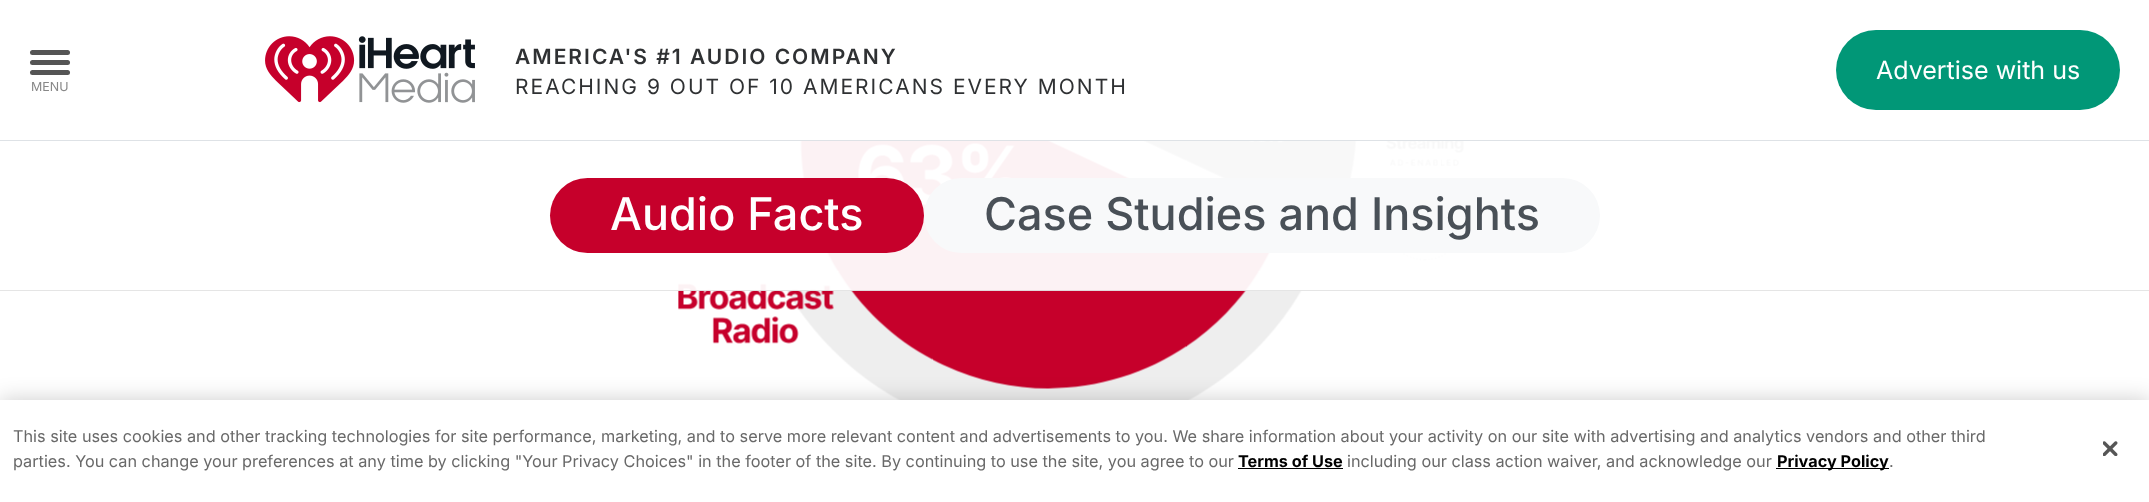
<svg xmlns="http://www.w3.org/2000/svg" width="2149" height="502">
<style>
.a{font:12.5px Inter;fill:#888}
.b{font:600 21px Inter;letter-spacing:2px;fill:#2f3133}
.c{font:21px Inter;letter-spacing:2px;fill:#2f3133}
.d{font:25px Inter;fill:#fff}
.e{font:500 45px Inter;fill:#fff}
.f{font:500 45px Inter;fill:#495057}
.g{font:16.26px Inter;fill:#696969}
.h{font:bold 16.26px Inter;fill:#000}
</style>
<rect width="100%" height="100%" fill="#fff"/>
<path fill="#dee2e6" d="M0 140h2149v1H0z"/>
<rect fill="#555" x="30" y="50" width="40" height="5" rx="2.5"/>
<rect fill="#555" x="30" y="60" width="40" height="5" rx="2.5"/>
<rect fill="#555" x="30" y="70" width="40" height="5" rx="2.5"/>
<image href="1.png" x="265" y="36" width="210" height="67"/>
<rect fill="#019777" x="1836" y="30" width="284" height="80" rx="40"/>
<image href="2.png" x="678" y="141" width="786" height="259"/>
<path fill="#fffffff2" d="M678 141h786v150H678z"/>
<path fill="#0000001a" d="M0 290h2149v1H0z"/>
<rect fill="#c6002b" x="550" y="178" width="374" height="75" rx="37.5"/>
<rect fill="#f8f9fa" x="924" y="178" width="676" height="75" rx="37.5"/>
<path fill="#00000033" filter="blur(11px)" d="M0 400h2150v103H0z"/>
<path fill="#fff" d="M0 400h2149v102H0z"/>
<path fill="#000" d="M1238 468h105v1H1238z"/>
<path fill="#000" d="M1776 468h113v1H1776z"/>
<image href="3.png" x="2103" y="441" width="15" height="15"/>
<text class="a" x="31" y="91">MENU</text>
<text class="b" x="515" y="64">AMERICA'S #1 AUDIO COMPANY</text>
<text class="c" x="515" y="94">REACHING 9 OUT OF 10 AMERICANS EVERY MONTH</text>
<text class="d" x="1876" y="79">Advertise with us</text>
<text class="e" x="610" y="230">Audio Facts</text>
<text class="f" x="984" y="230">Case Studies and Insights</text>
<text class="g" x="13" y="442">This site uses cookies and other tracking technologies for site performance, marketing, and to serve more relevant content and advertisements to you. We share information about your activity on our site with advertising and analytics vendors and other third</text>
<text class="g" x="13" y="467">parties. You can change your preferences at any time by clicking "Your Privacy Choices" in the footer of the site. By continuing to use the site, you agree to our</text>
<text class="h" x="1238" y="467">Terms of Use</text>
<text class="g" x="1347" y="467">including our class action waiver, and acknowledge our</text>
<text class="h" x="1777" y="467">Privacy Policy</text>
<text class="g" x="1889" y="467">.</text>
</svg>
